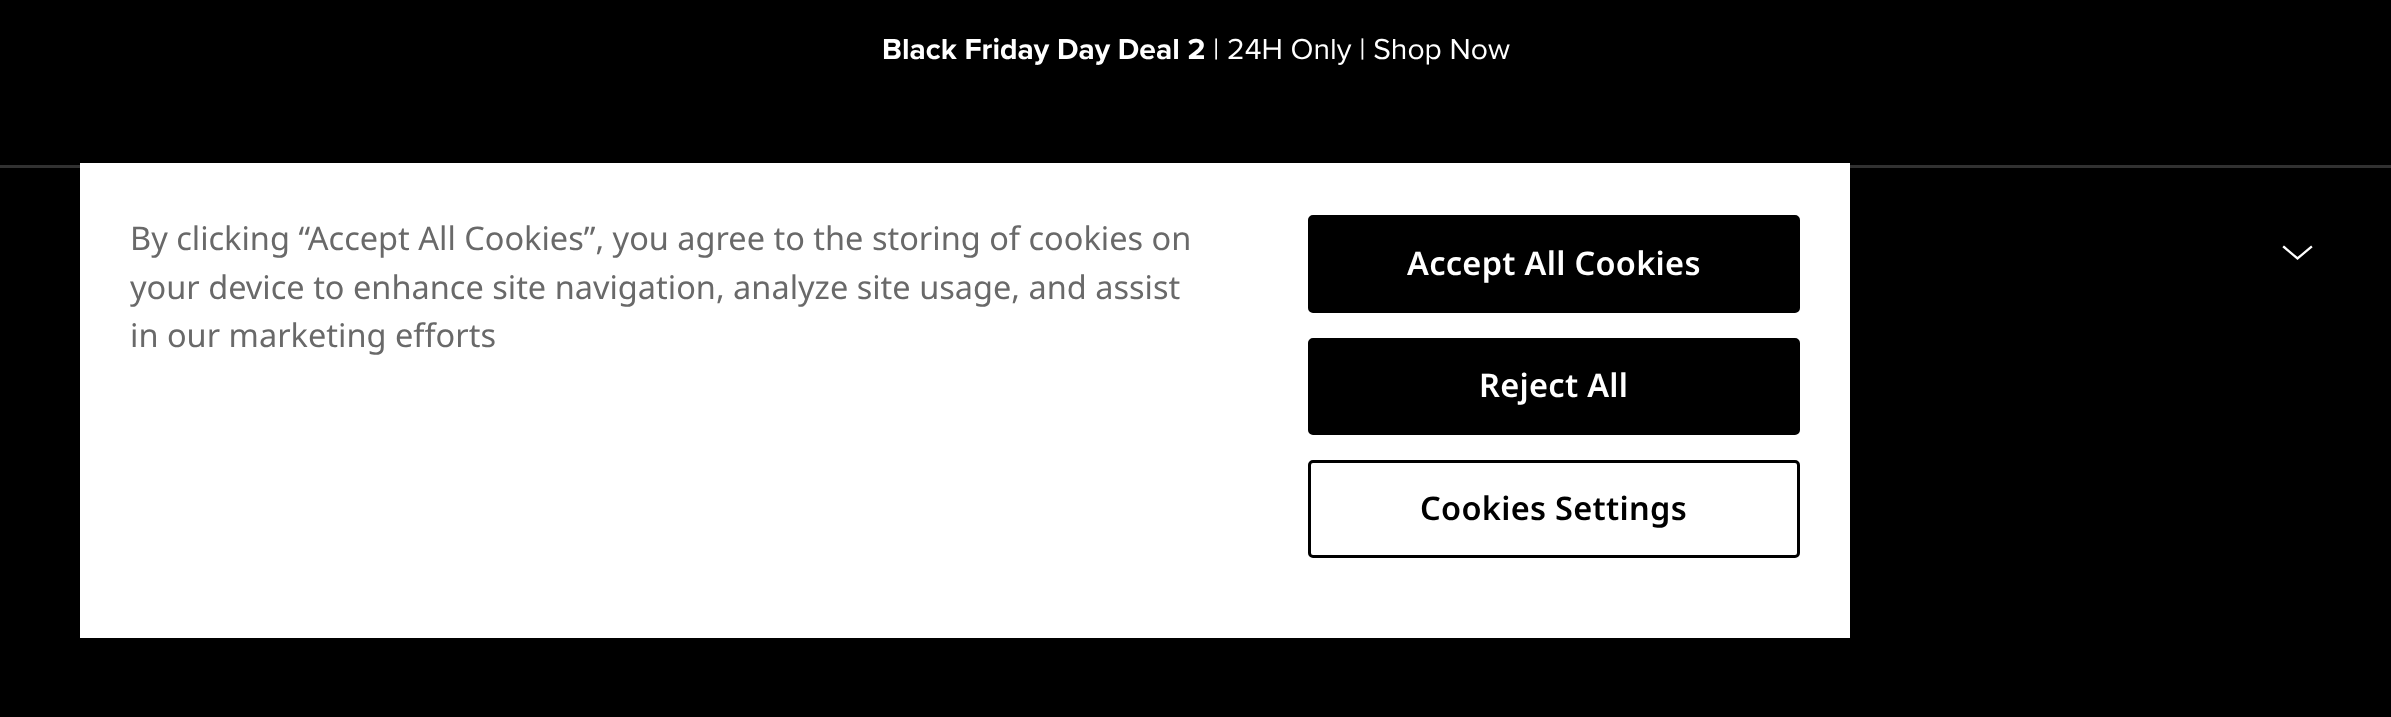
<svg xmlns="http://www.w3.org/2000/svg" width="2391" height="717">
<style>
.a{font:bold 30px Proxima Nova;fill:#fff}
.b{font:30px Proxima Nova;fill:#fff}
.c{font:32.5px Noto Sans;fill:#696969}
.d{font:600 32.5px Noto Sans;letter-spacing:0.3px;fill:#fff}
.e{font:600 32.5px Noto Sans;letter-spacing:0.3px;fill:#000}
</style>
<rect width="100%" height="100%" fill="#000"/>
<path fill="#313131" d="M0 165h2391v3H0z"/>
<path fill="none" stroke="#fff" stroke-width="2.3" stroke-linecap="square" d="M2284 247l13.5 11.5l13.5-11.5"/>
<path fill="#fff" d="M80 163h1770v475H80z"/>
<rect fill="#000" stroke="#000" stroke-width="3" x="1309.5" y="216.5" width="489" height="95" rx="3.5"/>
<rect fill="#000" stroke="#000" stroke-width="3" x="1309.5" y="339.5" width="489" height="94" rx="3.5"/>
<rect fill="none" stroke="#000" stroke-width="3" x="1309.5" y="461.5" width="489" height="95" rx="3.5"/>
<text class="a" x="882" y="59">Black Friday Day Deal 2</text>
<text class="b" x="1213" y="59">| 24H Only | Shop Now</text>
<text class="c" x="130" y="250">By clicking “Accept All Cookies”, you agree to the storing of cookies on</text>
<text class="c" x="130" y="299">your device to enhance site navigation, analyze site usage, and assist</text>
<text class="c" x="130" y="347">in our marketing efforts</text>
<text class="d" x="1407" y="275">Accept All Cookies</text>
<text class="d" x="1479" y="397">Reject All</text>
<text class="e" x="1420" y="520">Cookies Settings</text>
</svg>
